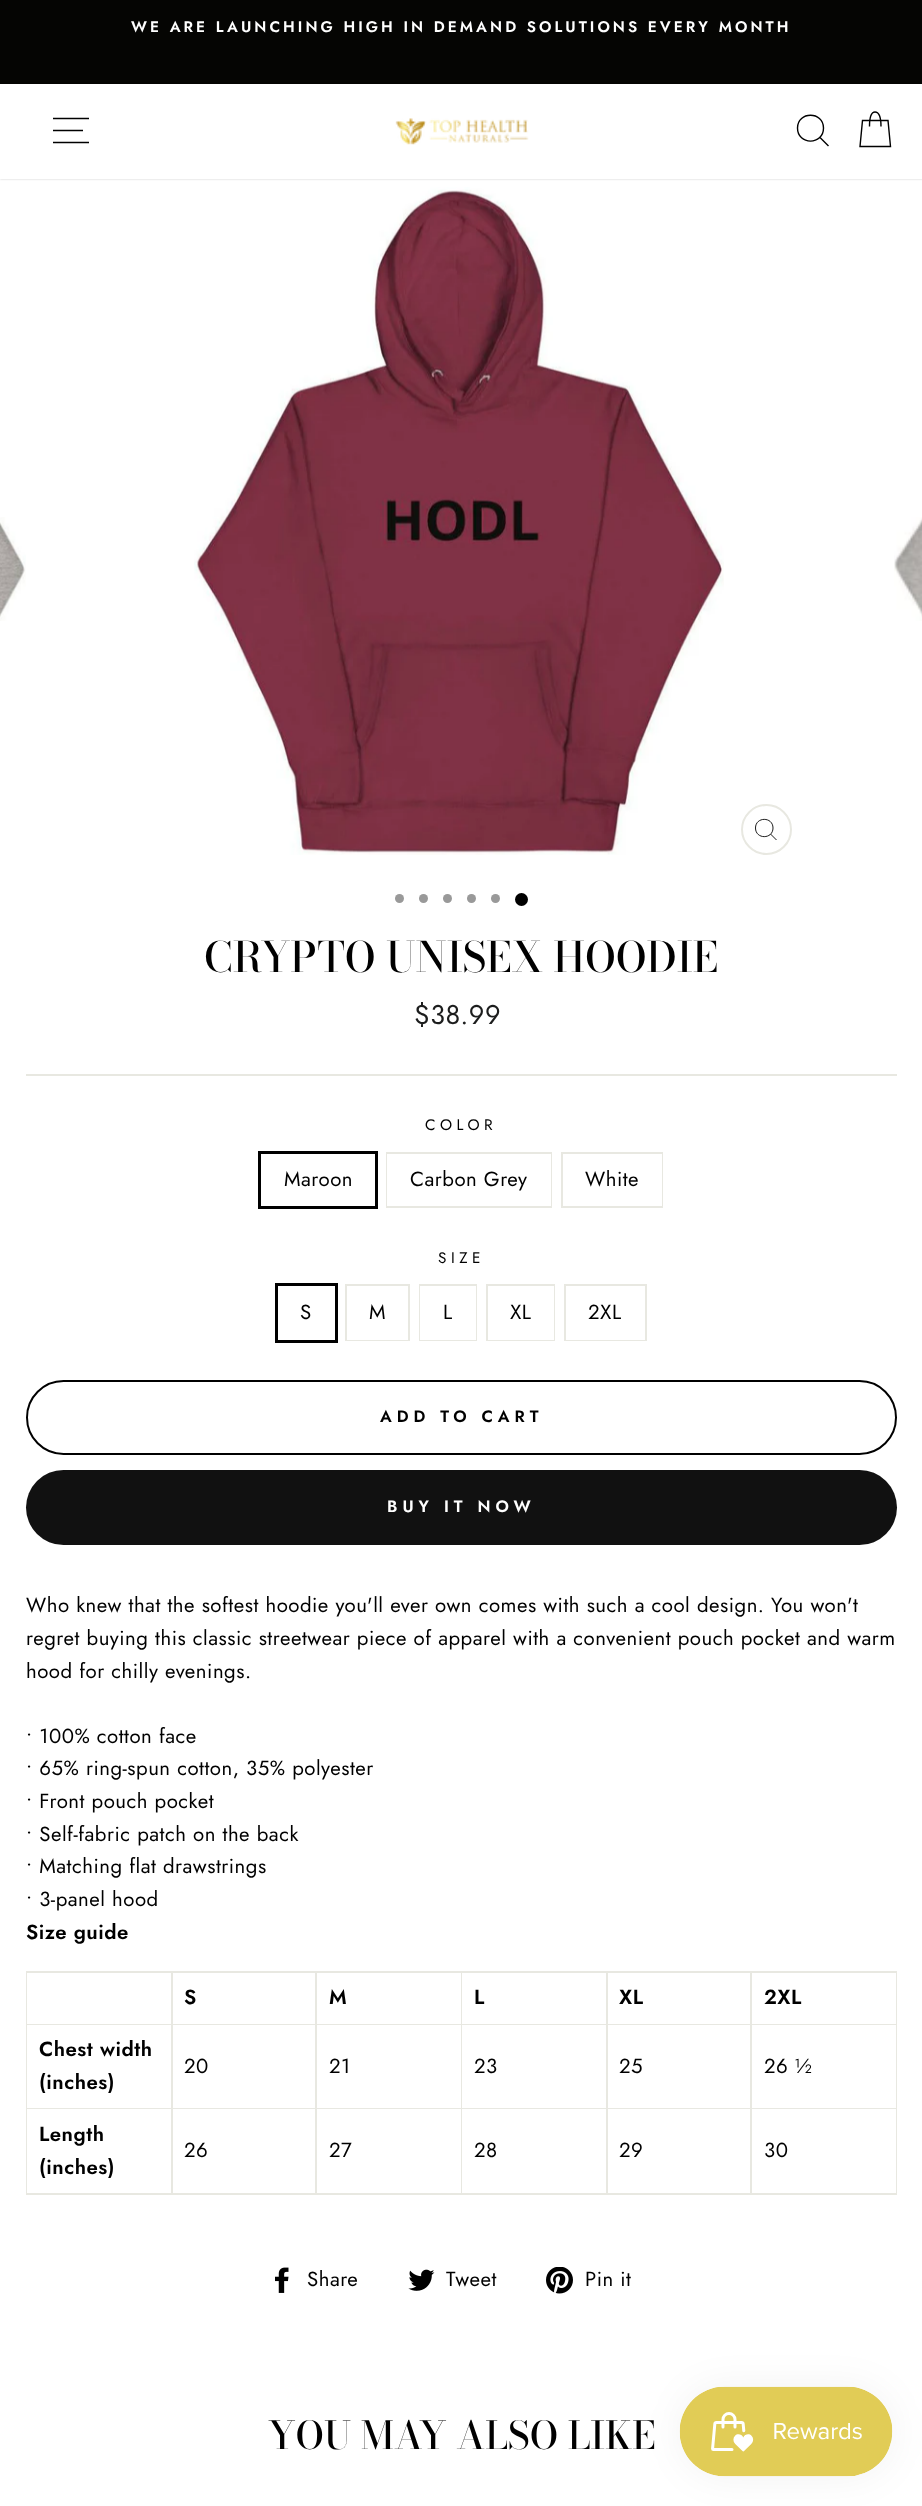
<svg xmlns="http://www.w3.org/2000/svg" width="922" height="2506">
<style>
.a{font:600 15.3px Jost;letter-spacing:3.05px;fill:#fff}
.b{font:500 41.6px Bodoni Moda;fill:#000}
.c{font:27px Jost;letter-spacing:0.5px;fill:#1c1d1d}
.d{font:15.3px Jost;letter-spacing:4.5px;fill:#000}
.e{font:20.4px Jost;letter-spacing:0.5px;fill:#000}
.f{font:600 16.5px Jost;letter-spacing:5px;fill:#000}
.g{font:600 16.5px Jost;letter-spacing:5px;fill:#fff}
.h{font:600 20.4px Jost;letter-spacing:0.5px;fill:#000}
.i{font:500 38.25px 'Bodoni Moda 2';fill:#000}
</style>
<rect width="100%" height="100%" fill="#fff"/>
<path fill="#050503" d="M0 0h922v84H0z"/>
<path fill="#00000033" filter="blur(1px)" d="M0 84h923v95H0z"/>
<path fill="#fff" d="M0 84h922v95H0z"/>
<path fill="none" stroke="#000" stroke-width="1.4" d="M53 118.5h36m-36 12h30m-30 12h36"/>
<image href="1.png" x="395" y="118" width="134" height="27"/>
<path fill="none" stroke="#000" stroke-width="1.4" d="M823.5 128c0 17.5-26 17.5-26 0c0-17 26-17 26 0zm5 18l-8.5-8.5"/>
<path fill="none" stroke="#000" stroke-width="1.4" d="M869.5 126.5c0-11.5 2.5-14.5 5.5-14.5c3.5 0 6 3 6 14.5m-18.5-6h25.5l2.5 26h-30.5z"/>
<image href="2.png" x="0" y="517" width="26" height="104"/>
<image href="3.png" x="194" y="187" width="530" height="668"/>
<circle fill="none" stroke="#e8e8e1" stroke-width="2" cx="766.5" cy="829.5" r="24.5"/>
<path fill="none" stroke="#000" stroke-width="0.9" d="M773 828c0 11.5-17.5 11.5-17.5 0c0-11.5 17.5-11.5 17.5 0zm3.5 12l-6-6"/>
<image href="4.png" x="894" y="517" width="28" height="104"/>
<circle fill="#999" cx="399.5" cy="898.5" r="4.5"/>
<circle fill="#999" cx="423.5" cy="898.5" r="4.5"/>
<circle fill="#999" cx="447.5" cy="898.5" r="4.5"/>
<circle fill="#999" cx="471.5" cy="898.5" r="4.5"/>
<circle fill="#999" cx="495.5" cy="898.5" r="4.5"/>
<circle fill="#000" cx="521.5" cy="899.5" r="6.5"/>
<path fill="#e8e8e1" d="M26 1074h871v2H26z"/>
<path fill="none" stroke="#000" stroke-width="3" d="M259.5 1152.5h117v55H259.5z"/>
<path fill="none" stroke="#e8e8e1" stroke-width="2" d="M387 1153h164v54H387z"/>
<path fill="#fff" d="M387 1154h164v52H387z"/>
<path fill="none" stroke="#e8e8e1" stroke-width="2" d="M562 1153h100v54H562z"/>
<path fill="#fff" d="M661 1154h1v52H661z"/>
<path fill="none" stroke="#000" stroke-width="3" d="M276.5 1284.5h60v57H276.5z"/>
<path fill="none" stroke="#e8e8e1" stroke-width="2" d="M346 1285h63v55H346z"/>
<path fill="#fff" d="M347 1339h61v1H347z"/>
<path fill="none" stroke="#e8e8e1" stroke-width="2" d="M420 1285h56v55H420z"/>
<path fill="#fff" d="M420 1286h56v54H420z"/>
<path fill="none" stroke="#e8e8e1" stroke-width="2" d="M487 1285h67v55H487z"/>
<path fill="#fff" d="M488 1286h66v54H488z"/>
<path fill="none" stroke="#e8e8e1" stroke-width="2" d="M565 1285h81v55H565z"/>
<path fill="#fff" d="M566 1339h79v1H566z"/>
<rect fill="none" stroke="#000" stroke-width="2" x="27" y="1381" width="869" height="73" rx="36.5"/>
<rect fill="#111" x="26" y="1470" width="871" height="75" rx="37.5"/>
<path fill="#e8e8e1" d="M26 1971h871v224H26z"/>
<path fill="#fff" d="M27 1973h144v51H27z"/>
<path fill="#fff" d="M173 1973h142v51H173z"/>
<path fill="#fff" d="M317 1973h144v51H317z"/>
<path fill="#fff" d="M462 1973h144v51H462z"/>
<path fill="#fff" d="M608 1973h142v51H608z"/>
<path fill="#fff" d="M752 1973h144v51H752z"/>
<path fill="#fff" d="M27 2025h144v83H27z"/>
<path fill="#fff" d="M173 2025h142v83H173z"/>
<path fill="#fff" d="M317 2025h144v83H317z"/>
<path fill="#fff" d="M462 2025h144v83H462z"/>
<path fill="#fff" d="M608 2025h142v83H608z"/>
<path fill="#fff" d="M752 2025h144v83H752z"/>
<path fill="#fff" d="M27 2109h144v84H27z"/>
<path fill="#fff" d="M173 2109h142v84H173z"/>
<path fill="#fff" d="M317 2109h144v84H317z"/>
<path fill="#fff" d="M462 2109h144v84H462z"/>
<path fill="#fff" d="M608 2109h142v84H608z"/>
<path fill="#fff" d="M752 2109h144v84H752z"/>
<image href="5.png" x="275" y="2267" width="14" height="26"/>
<image href="6.png" x="408" y="2269" width="27" height="22"/>
<image href="7.png" x="546" y="2267" width="27" height="27"/>
<rect fill="#0000000d" filter="blur(19px)" x="680" y="2387" width="213" height="90" rx="45"/>
<image href="8.png" x="679" y="2386" width="214" height="91"/>
<text class="a" x="131" y="32">WE ARE LAUNCHING HIGH IN DEMAND SOLUTIONS EVERY MONTH</text>
<text class="b" x="204" y="972">CRYPTO UNISEX HOODIE</text>
<text class="c" x="414" y="1024">$38.99</text>
<text class="d" x="425" y="1130">COLOR</text>
<text class="e" x="284" y="1186">Maroon</text>
<text class="e" x="410" y="1186">Carbon Grey</text>
<text class="e" x="585" y="1186">White</text>
<text class="d" x="438" y="1263">SIZE</text>
<text class="e" x="300" y="1319">S</text>
<text class="e" x="369" y="1319">M</text>
<text class="e" x="443" y="1319">L</text>
<text class="e" x="510" y="1319">XL</text>
<text class="e" x="588" y="1319">2XL</text>
<text class="f" x="380" y="1422">ADD TO CART</text>
<text class="g" x="387" y="1512">BUY IT NOW</text>
<text class="e" x="26" y="1612">Who knew that the softest hoodie you'll ever own comes with such a cool design. You won't</text>
<text class="e" x="26" y="1645">regret buying this classic streetwear piece of apparel with a convenient pouch pocket and warm</text>
<text class="e" x="26" y="1678">hood for chilly evenings.</text>
<text class="e" x="26" y="1743">• 100% cotton face</text>
<text class="e" x="26" y="1775">• 65% ring-spun cotton, 35% polyester</text>
<text class="e" x="26" y="1808">• Front pouch pocket</text>
<text class="e" x="26" y="1841">• Self-fabric patch on the back</text>
<text class="e" x="26" y="1873">• Matching flat drawstrings</text>
<text class="e" x="26" y="1906">• 3-panel hood</text>
<text class="h" x="26" y="1939">Size guide</text>
<text class="h" x="184" y="2004">S</text>
<text class="h" x="329" y="2004">M</text>
<text class="h" x="474" y="2004">L</text>
<text class="h" x="619" y="2004">XL</text>
<text class="h" x="764" y="2004">2XL</text>
<text class="h" x="39" y="2056">Chest width</text>
<text class="h" x="39" y="2089">(inches)</text>
<text class="e" x="184" y="2073">20</text>
<text class="e" x="329" y="2073">21</text>
<text class="e" x="474" y="2073">23</text>
<text class="e" x="619" y="2073">25</text>
<text class="e" x="764" y="2073">26 ½</text>
<text class="h" x="39" y="2141">Length</text>
<text class="h" x="39" y="2174">(inches)</text>
<text class="e" x="184" y="2157">26</text>
<text class="e" x="329" y="2157">27</text>
<text class="e" x="474" y="2157">28</text>
<text class="e" x="619" y="2157">29</text>
<text class="e" x="764" y="2157">30</text>
<text class="e" x="307" y="2286">Share</text>
<text class="e" x="446" y="2286">Tweet</text>
<text class="e" x="585" y="2286">Pin it</text>
<text class="i" x="268" y="2449">YOU MAY ALSO LIKE</text>
</svg>
